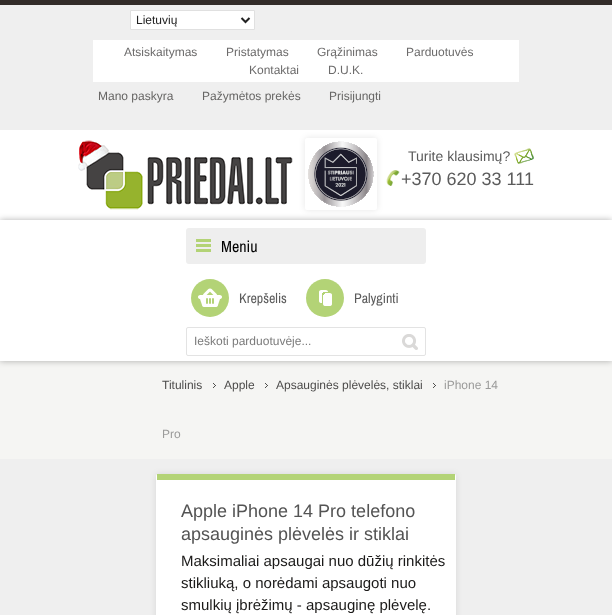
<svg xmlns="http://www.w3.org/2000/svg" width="612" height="615">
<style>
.a{font:12px Liberation Sans;fill:#222}
.b{font:12px Liberation Sans;fill:#6c6b6b}
.c{font:12px Liberation Sans;fill:#676665}
.d{font:14px Liberation Sans;fill:#5b5b5b}
.e{font:18px Liberation Sans;fill:#5b5b5b}
.f{font:16px Archivo Narrow;fill:#000}
.g{font:14px Archivo Narrow;fill:#5b5b5b}
.h{font:12px Liberation Sans;fill:#7b7b7b}
.i{font:12px Liberation Sans;fill:#4d4c4b}
.j{font:12px Liberation Sans;fill:#9b9b9a}
.k{font:18px Liberation Sans;fill:#545454}
.l{font:15px Liberation Sans;fill:#1b1a19}
</style>
<defs>
<clipPath id="clip1"><path d="M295 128h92v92h-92zm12 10h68c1 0 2 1 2 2v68c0 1-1 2-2 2h-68c-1 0-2-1-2-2v-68c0-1 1-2 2-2z" clip-rule="evenodd"/></clipPath>
<clipPath id="clip2"><path d="M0 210h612v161h-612zm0 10h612v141h-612z" clip-rule="evenodd"/></clipPath>
</defs>
<rect width="100%" height="100%" fill="#efefef"/>
<path fill="#322c29" d="M0 0h612v5H0z"/>
<path fill="#fff" d="M0 130h612v231H0z"/>
<path fill="#fff" stroke="#e0e0e0" d="M130.5 10.5h124v19H130.5z"/>
<path fill="none" stroke="#222" stroke-width="2" d="M241.5 18l4 4l4-4"/>
<path fill="#fff" d="M93 40h426v42H93z"/>
<image href="1.png" x="78" y="140" width="215" height="70"/>
<g clip-path="url(#clip1)">
<rect fill="#0000001a" filter="blur(3px)" x="305" y="138" width="72" height="72" rx="2"/>
</g>
<image href="2.png" x="308" y="141" width="66" height="66"/>
<image href="3.png" x="514" y="148" width="20" height="16"/>
<image href="4.png" x="386" y="170" width="14" height="16"/>
<path fill="#f5f5f3" d="M0 361h612v98H0z"/>
<g clip-path="url(#clip2)">
<path fill="#0000004d" filter="blur(3px)" d="M0 220h612v141H0z"/>
</g>
<rect fill="#eee" x="186" y="228" width="240" height="36" rx="3"/>
<path fill="#b3d376" d="M196 239h15v3H196z"/>
<path fill="#b3d376" d="M196 244h15v3H196z"/>
<path fill="#b3d376" d="M196 249h15v3H196z"/>
<circle fill="#b3d376" cx="210" cy="298" r="19"/>
<image href="5.png" x="198" y="288" width="24" height="19"/>
<circle fill="#b3d376" cx="325" cy="298" r="19"/>
<image href="6.png" x="319" y="290" width="13" height="16"/>
<rect fill="none" stroke="#e3e3e3" x="186.5" y="327.5" width="239" height="28" rx="1.5"/>
<image href="7.png" x="402" y="334" width="16" height="16"/>
<image href="8.png" x="213" y="383" width="3" height="5"/>
<image href="8.png" x="265" y="383" width="3" height="5"/>
<image href="8.png" x="433" y="383" width="3" height="5"/>
<rect fill="#0000001a" filter="blur(3px)" x="156" y="474" width="300" height="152" rx="2"/>
<rect fill="#fff" x="156" y="474" width="300" height="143" rx="2"/>
<path fill="#b3d376" d="M157 474h298v6H157z"/>
<text class="a" x="136" y="24">Lietuvių</text>
<text class="b" x="124" y="56">Atsiskaitymas</text>
<text class="b" x="226" y="56">Pristatymas</text>
<text class="b" x="317" y="56">Grąžinimas</text>
<text class="b" x="406" y="56">Parduotuvės</text>
<text class="b" x="249" y="74">Kontaktai</text>
<text class="b" x="328" y="74">D.U.K.</text>
<text class="c" x="98" y="100">Mano paskyra</text>
<text class="c" x="202" y="100">Pažymėtos prekės</text>
<text class="c" x="329" y="100">Prisijungti</text>
<text class="d" x="408" y="161">Turite klausimų?</text>
<text class="e" x="401" y="185">+370 620 33 111</text>
<text class="f" x="221" y="252">Meniu</text>
<text class="g" x="239" y="303">Krepšelis</text>
<text class="g" x="354" y="303">Palyginti</text>
<text class="h" x="194" y="345">Ieškoti parduotuvėje...</text>
<text class="i" x="162" y="389">Titulinis</text>
<text class="i" x="224" y="389">Apple</text>
<text class="i" x="276" y="389">Apsauginės plėvelės, stiklai</text>
<text class="j" x="444" y="389">iPhone 14</text>
<text class="j" x="162" y="438">Pro</text>
<text class="k" x="181" y="517">Apple iPhone 14 Pro telefono</text>
<text class="k" x="181" y="540">apsauginės plėvelės ir stiklai</text>
<text class="l" x="181" y="566">Maksimaliai apsaugai nuo dūžių rinkitės</text>
<text class="l" x="181" y="588">stikliuką, o norėdami apsaugoti nuo</text>
<text class="l" x="181" y="610">smulkių įbrėžimų - apsauginę plėvelę.</text>
</svg>
